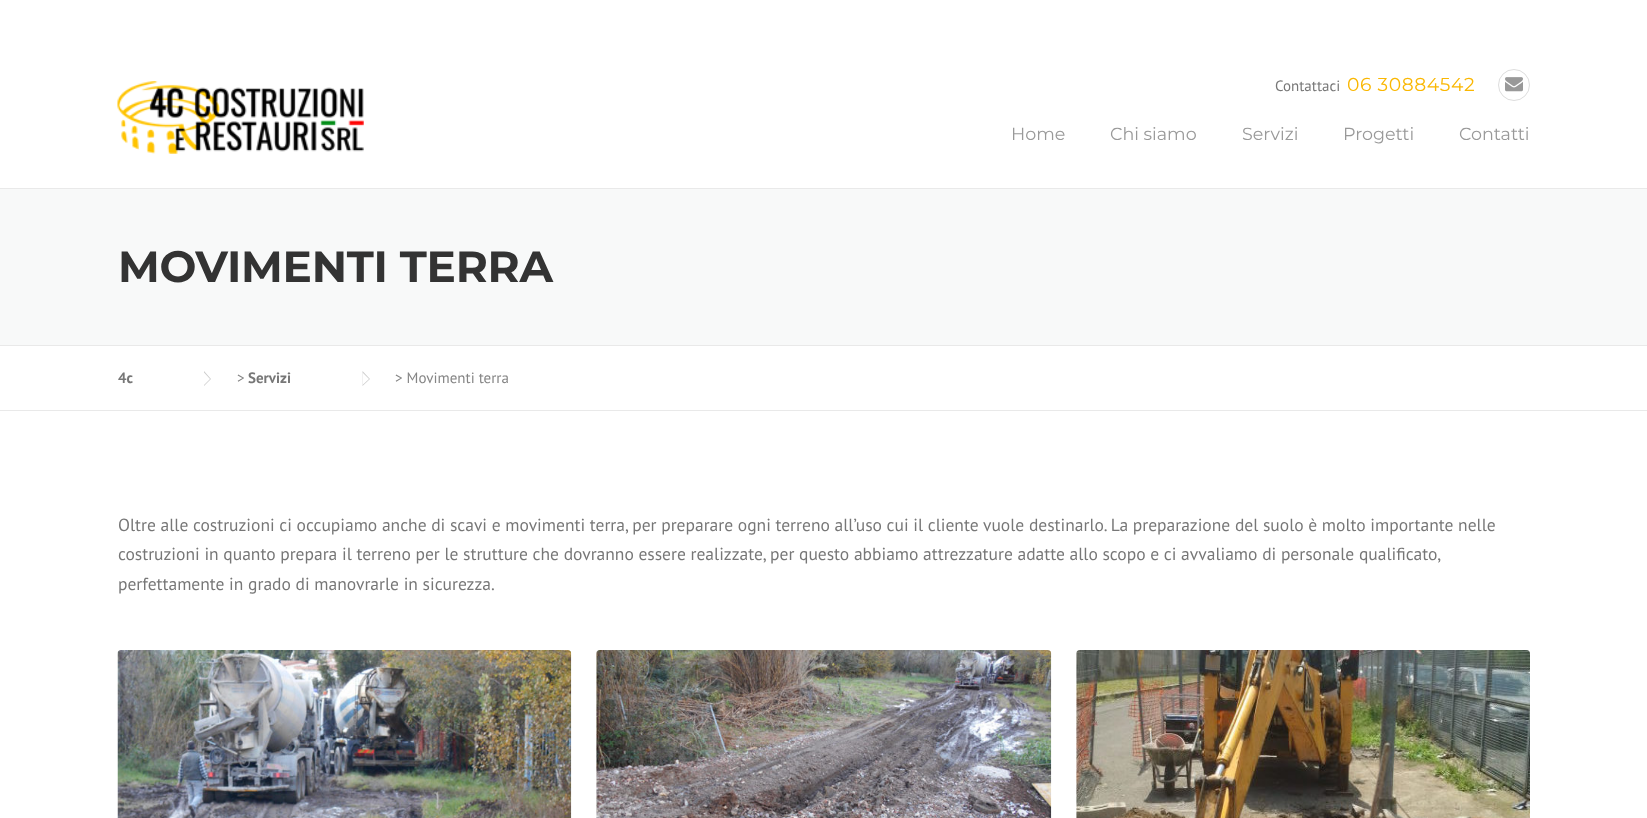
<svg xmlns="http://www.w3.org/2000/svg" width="1647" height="818">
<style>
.a{font:15px PT Sans;fill:#777}
.b{font:18.75px Montserrat;letter-spacing:0.6px;fill:#fab702}
.c{font:17.5px Montserrat;fill:#999}
.d{font:bold 43.75px Montserrat;letter-spacing:-0.25px;fill:#333}
.e{font:bold 15px PT Sans;fill:#777}
.f{font:15px PT Sans;fill:#858585}
.g{font:17.5px PT Sans;fill:#777}
</style>
<rect width="100%" height="100%" fill="#fff"/>
<image href="1.png" x="117" y="81" width="247" height="73"/>
<circle fill="none" stroke="#ddd" cx="1514" cy="85" r="15.5"/>
<image href="2.png" x="1505" y="77" width="18" height="15"/>
<path fill="#f8f9f9" d="M0 189h1647v156H0z"/>
<path fill="#e9e9e9" d="M0 188h1647v1H0z"/>
<path fill="#e9e9e9" d="M0 345h1647v1H0z"/>
<path fill="#e9e9e9" d="M0 410h1647v1H0z"/>
<path fill="#ccc" d="M204 386v-15l7 8z"/>
<path fill="#fff" d="M204 385v-12.5l6 6.5z"/>
<path fill="#ccc" d="M362.5 386v-15l7.5 8z"/>
<path fill="#fff" d="M362.5 385v-12.5l6.5 6.5z"/>
<image href="3.png" x="117" y="650" width="455" height="168"/>
<image href="4.png" x="596" y="650" width="456" height="168"/>
<image href="5.png" x="1076" y="650" width="454" height="168"/>
<text class="a" x="1275" y="91">Contattaci</text>
<text class="b" x="1347" y="91">06 30884542</text>
<text class="c" x="1011" y="140">Home</text>
<text class="c" x="1110" y="140">Chi siamo</text>
<text class="c" x="1242" y="140">Servizi</text>
<text class="c" x="1343" y="140">Progetti</text>
<text class="c" x="1459" y="140">Contatti</text>
<text class="d" x="118" y="282">MOVIMENTI TERRA</text>
<text class="e" x="118" y="383">4c</text>
<text class="f" x="237" y="383">&gt;</text>
<text class="e" x="248" y="383">Servizi</text>
<text class="f" x="395" y="383">&gt; Movimenti terra</text>
<text class="g" x="118" y="531">Oltre alle costruzioni ci occupiamo anche di scavi e movimenti terra, per preparare ogni terreno all’uso cui il cliente vuole destinarlo. La preparazione del suolo è molto importante nelle</text>
<text class="g" x="118" y="560">costruzioni in quanto prepara il terreno per le strutture che dovranno essere realizzate, per questo abbiamo attrezzature adatte allo scopo e ci avvaliamo di personale qualificato,</text>
<text class="g" x="118" y="590">perfettamente in grado di manovrarle in sicurezza.</text>
</svg>
